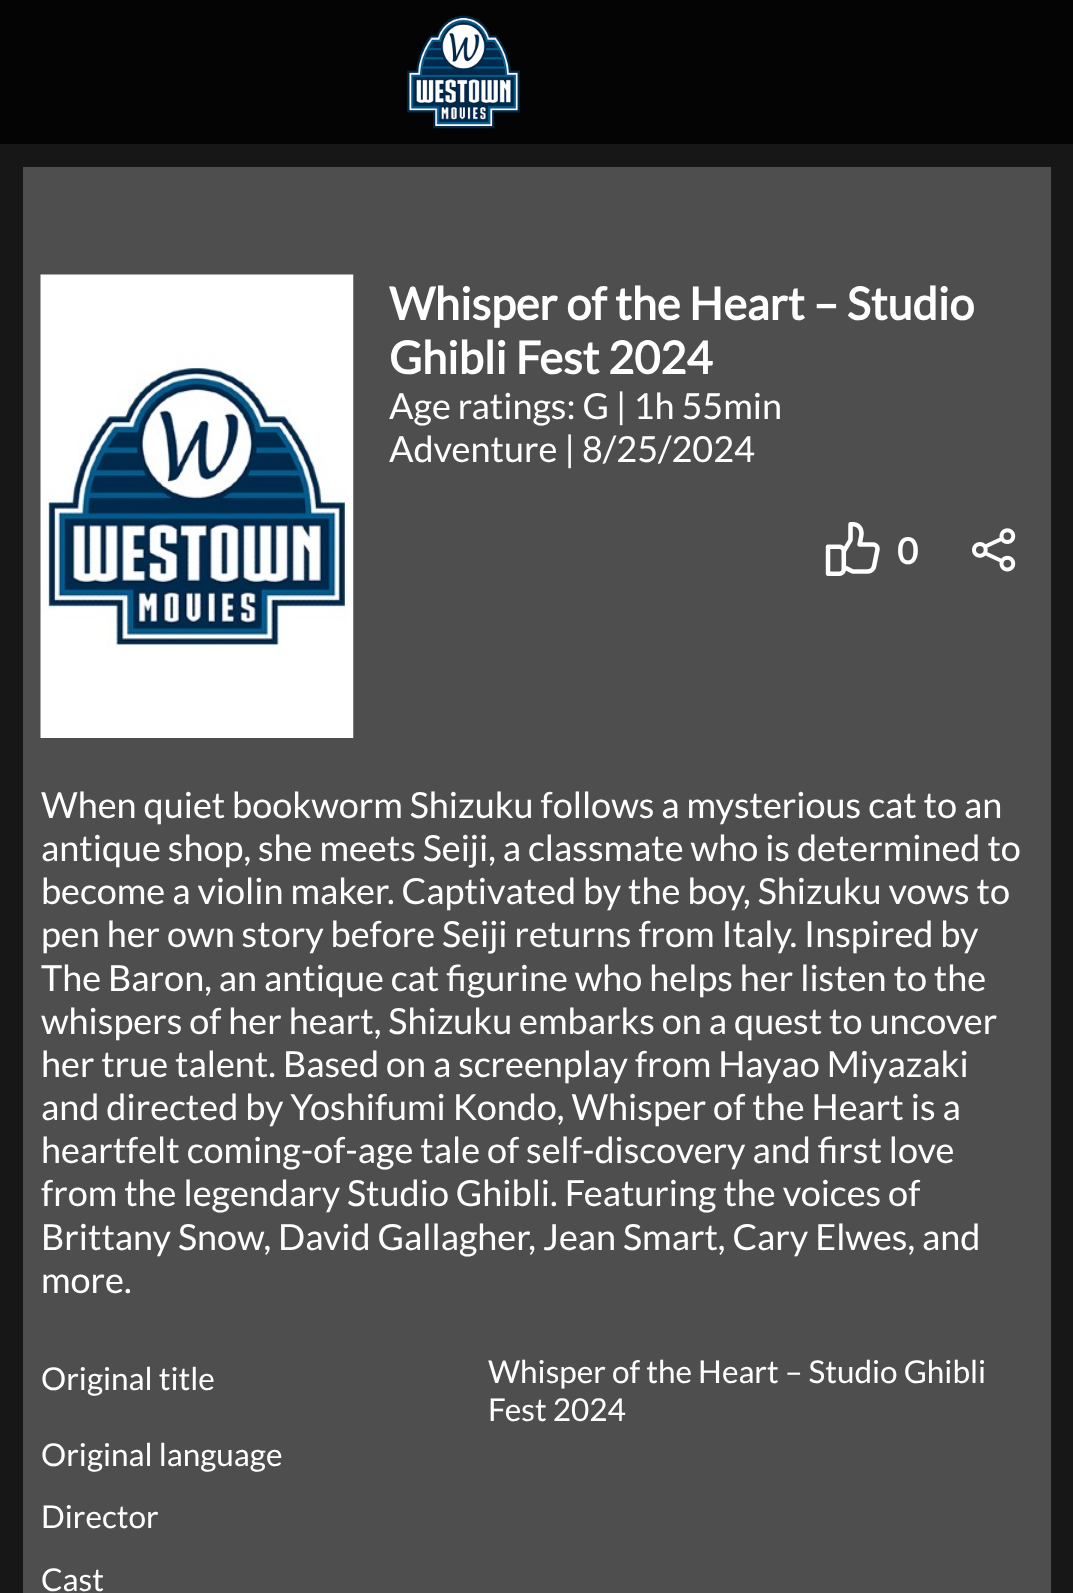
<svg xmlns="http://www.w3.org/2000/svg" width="1073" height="1593">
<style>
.a{font:bold 45px Lato;fill:#fff}
.b{font:36px Lato;fill:#fff}
.c{font:bold 36px Lato;fill:#fff}
.d{font:31.5px Lato;fill:#fff}
</style>
<rect width="100%" height="100%" fill="#171717"/>
<path fill="#040404" d="M0 0h1073v144H0z"/>
<image href="1.png" x="407" y="15" width="113" height="114"/>
<path fill="#4e4e4e" d="M23 167h1028v1426H23z"/>
<image href="2.png" x="40" y="274" width="314" height="464"/>
<image href="3.png" x="825" y="522" width="55" height="54"/>
<image href="4.png" x="972" y="528" width="44" height="44"/>
<text class="a" x="389" y="320">Whisper of the Heart – Studio</text>
<text class="a" x="389" y="374">Ghibli Fest 2024</text>
<text class="b" x="389" y="419">Age ratings: G | 1h 55min</text>
<text class="b" x="389" y="462">Adventure | 8/25/2024</text>
<text class="c" x="897" y="564">0</text>
<text class="b" x="41" y="818">When quiet bookworm Shizuku follows a mysterious cat to an</text>
<text class="b" x="41" y="861">antique shop, she meets Seiji, a classmate who is determined to</text>
<text class="b" x="41" y="904">become a violin maker. Captivated by the boy, Shizuku vows to</text>
<text class="b" x="41" y="947">pen her own story before Seiji returns from Italy. Inspired by</text>
<text class="b" x="41" y="991">The Baron, an antique cat figurine who helps her listen to the</text>
<text class="b" x="41" y="1034">whispers of her heart, Shizuku embarks on a quest to uncover</text>
<text class="b" x="41" y="1077">her true talent. Based on a screenplay from Hayao Miyazaki</text>
<text class="b" x="41" y="1120">and directed by Yoshifumi Kondo, Whisper of the Heart is a</text>
<text class="b" x="41" y="1163">heartfelt coming-of-age tale of self-discovery and first love</text>
<text class="b" x="41" y="1206">from the legendary Studio Ghibli. Featuring the voices of</text>
<text class="b" x="41" y="1250">Brittany Snow, David Gallagher, Jean Smart, Cary Elwes, and</text>
<text class="b" x="41" y="1293">more.</text>
<text class="d" x="41" y="1390">Original title</text>
<text class="d" x="488" y="1383">Whisper of the Heart – Studio Ghibli</text>
<text class="d" x="488" y="1421">Fest 2024</text>
<text class="d" x="41" y="1466">Original language</text>
<text class="d" x="41" y="1528">Director</text>
<text class="d" x="41" y="1591">Cast</text>
</svg>
